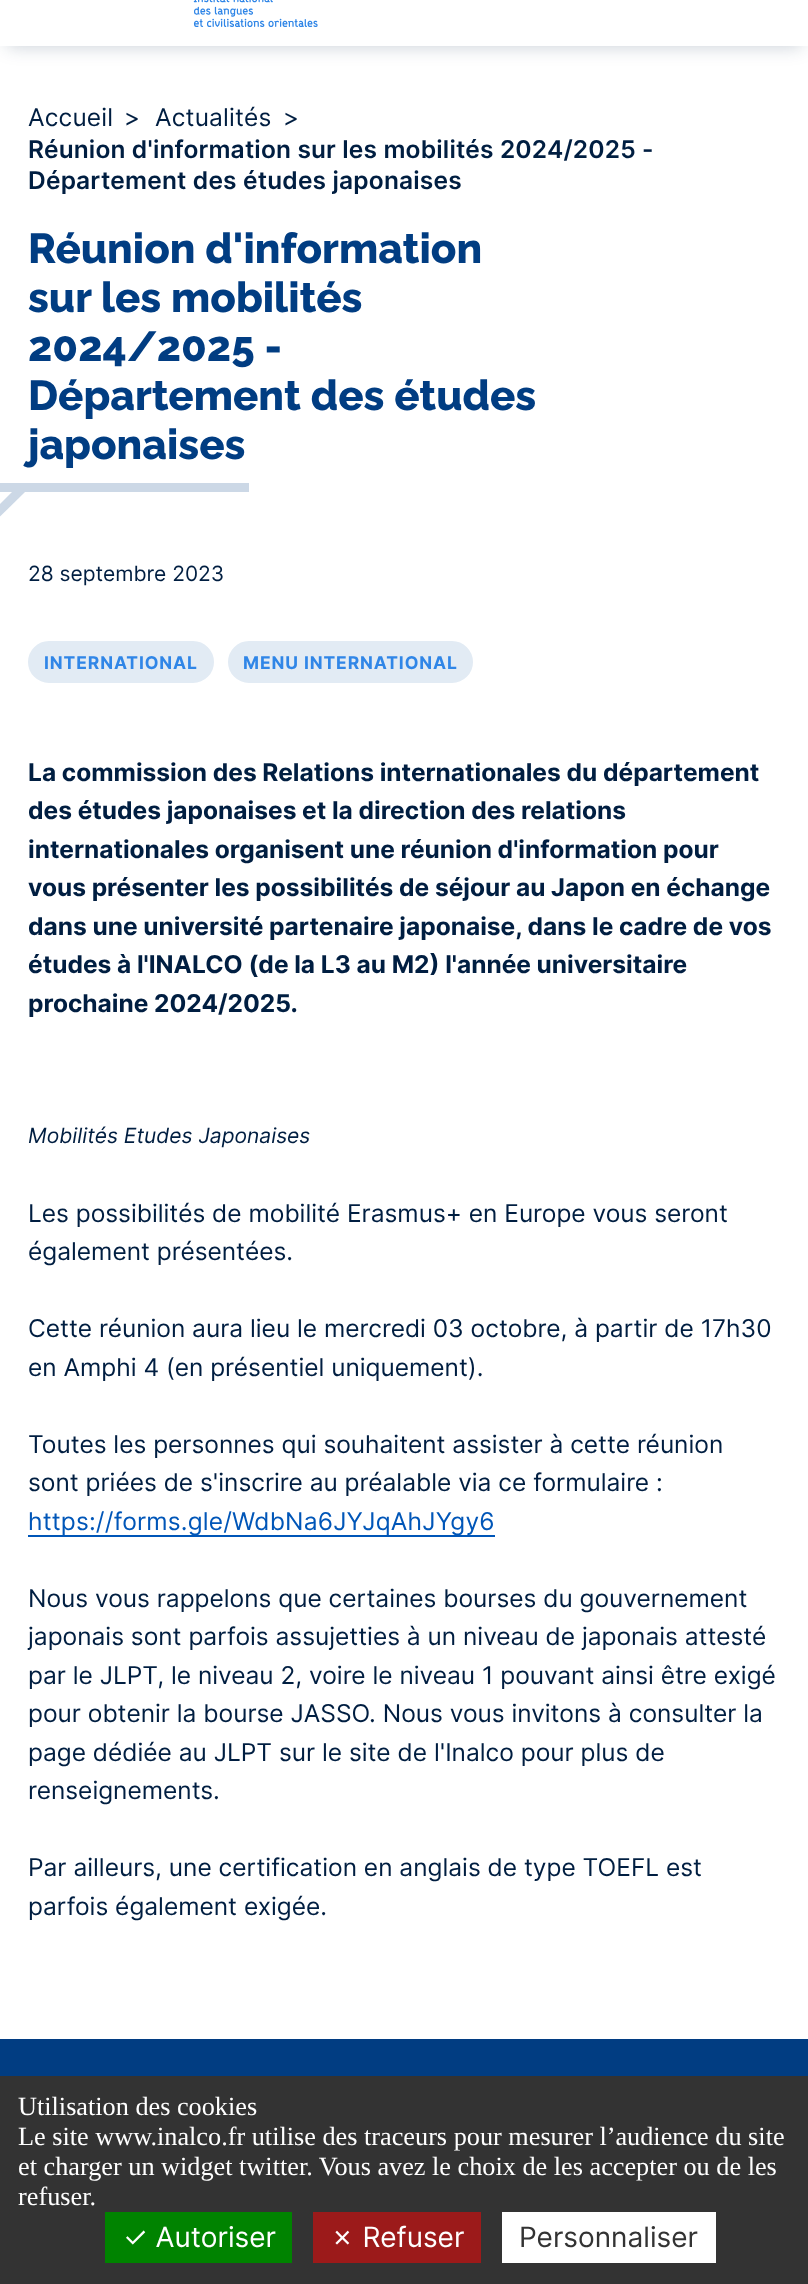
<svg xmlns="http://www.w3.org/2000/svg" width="808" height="2284">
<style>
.a{font:24.5px Inter;letter-spacing:0.18px;fill:#001e41}
.b{font:24.5px Inter;fill:#001e41}
.c{font:600 24.5px Inter;letter-spacing:0.18px;fill:#001e41}
.d{font:800 42px Raleway;fill:#013d82}
.e{font:21px Inter;fill:#001e41}
.f{font:bold 17.5px Inter;letter-spacing:0.9px;fill:#3086e7}
.g{font:bold 24.5px Inter;fill:#001e41}
.h{font:italic 21px Inter;fill:#001e41}
.i{font:24.5px Inter;letter-spacing:0.18px;fill:#0056b8}
.j{font:26.25px Liberation Serif;fill:#fff}
.k{font:28px Inter;fill:#fff}
.l{font:28px Inter;fill:#333}
</style>
<rect width="100%" height="100%" fill="#fff"/>
<path fill="#001e4133" filter="blur(9px)" d="M7 -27h795v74H7z"/>
<path fill="#fff" d="M0 0h808v46H0z"/>
<image href="1.png" x="193" y="0" width="125" height="27"/>
<path fill="#ccd8e6" d="M0 483h249v9H0z"/>
<path fill="#ccd8e6" d="M25 492l-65 64l-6-6l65-65z"/>
<rect fill="#e2ebf4" stroke="#e2ebf4" stroke-width="4" x="30" y="643" width="182" height="38" rx="19"/>
<rect fill="#e2ebf4" stroke="#e2ebf4" stroke-width="4" x="230" y="643" width="241" height="38" rx="19"/>
<path fill="#0056b8" d="M28 1535h467v2H28z"/>
<path fill="#013d82" d="M0 2039h808v37H0z"/>
<path fill="#333" d="M0 2076h808v208H0z"/>
<path fill="#008300" d="M105 2212h187v51H105z"/>
<path fill="#9c1a1a" d="M313 2212h168v51H313z"/>
<path fill="#fff" d="M502 2212h214v51H502z"/>
<text class="a" x="28" y="126">Accueil</text>
<text class="b" x="124" y="126">&gt;</text>
<text class="a" x="155" y="126">Actualités</text>
<text class="b" x="283" y="126">&gt;</text>
<text class="c" x="28" y="158">Réunion d'information sur les mobilités 2024/2025 -</text>
<text class="c" x="28" y="189">Département des études japonaises</text>
<text class="d" x="28" y="263">Réunion d'information</text>
<text class="d" x="28" y="312">sur les mobilités</text>
<text class="d" x="28" y="361">2024/2025 -</text>
<text class="d" x="28" y="410">Département des études</text>
<text class="d" x="28" y="459">japonaises</text>
<text class="e" x="28" y="581">28 septembre 2023</text>
<text class="f" x="44" y="669">INTERNATIONAL</text>
<text class="f" x="243" y="669">MENU INTERNATIONAL</text>
<text class="g" x="28" y="781">La commission des Relations internationales du département</text>
<text class="g" x="28" y="819">des études japonaises et la direction des relations</text>
<text class="g" x="28" y="858">internationales organisent une réunion d'information pour</text>
<text class="g" x="28" y="896">vous présenter les possibilités de séjour au Japon en échange</text>
<text class="g" x="28" y="935">dans une université partenaire japonaise, dans le cadre de vos</text>
<text class="g" x="28" y="973">études à l'INALCO (de la L3 au M2) l'année universitaire</text>
<text class="g" x="28" y="1012">prochaine 2024/2025.</text>
<text class="h" x="28" y="1143">Mobilités Etudes Japonaises</text>
<text class="b" x="28" y="1222">Les possibilités de mobilité Erasmus+ en Europe vous seront</text>
<text class="b" x="28" y="1260">également présentées.</text>
<text class="b" x="28" y="1337">Cette réunion aura lieu le mercredi 03 octobre, à partir de 17h30</text>
<text class="b" x="28" y="1376">en Amphi 4 (en présentiel uniquement).</text>
<text class="b" x="28" y="1453">Toutes les personnes qui souhaitent assister à cette réunion</text>
<text class="b" x="28" y="1491">sont priées de s'inscrire au préalable via ce formulaire :</text>
<text class="i" x="28" y="1530">https://forms.gle/WdbNa6JYJqAhJYgy6</text>
<text class="b" x="28" y="1607">Nous vous rappelons que certaines bourses du gouvernement</text>
<text class="b" x="28" y="1645">japonais sont parfois assujetties à un niveau de japonais attesté</text>
<text class="b" x="28" y="1684">par le JLPT, le niveau 2, voire le niveau 1 pouvant ainsi être exigé</text>
<text class="b" x="28" y="1722">pour obtenir la bourse JASSO. Nous vous invitons à consulter la</text>
<text class="b" x="28" y="1761">page dédiée au JLPT sur le site de l'Inalco pour plus de</text>
<text class="b" x="28" y="1799">renseignements.</text>
<text class="b" x="28" y="1876">Par ailleurs, une certification en anglais de type TOEFL est</text>
<text class="b" x="28" y="1915">parfois également exigée.</text>
<text class="j" x="18" y="2115">Utilisation des cookies</text>
<text class="j" x="18" y="2145">Le site www.inalco.fr utilise des traceurs pour mesurer l’audience du site</text>
<text class="j" x="18" y="2175">et charger un widget twitter. Vous avez le choix de les accepter ou de les</text>
<text class="j" x="18" y="2205">refuser.</text>
<text class="k" x="123" y="2247">✓ Autoriser</text>
<text class="k" x="330" y="2247">✗ Refuser</text>
<text class="l" x="519" y="2247">Personnaliser</text>
</svg>
